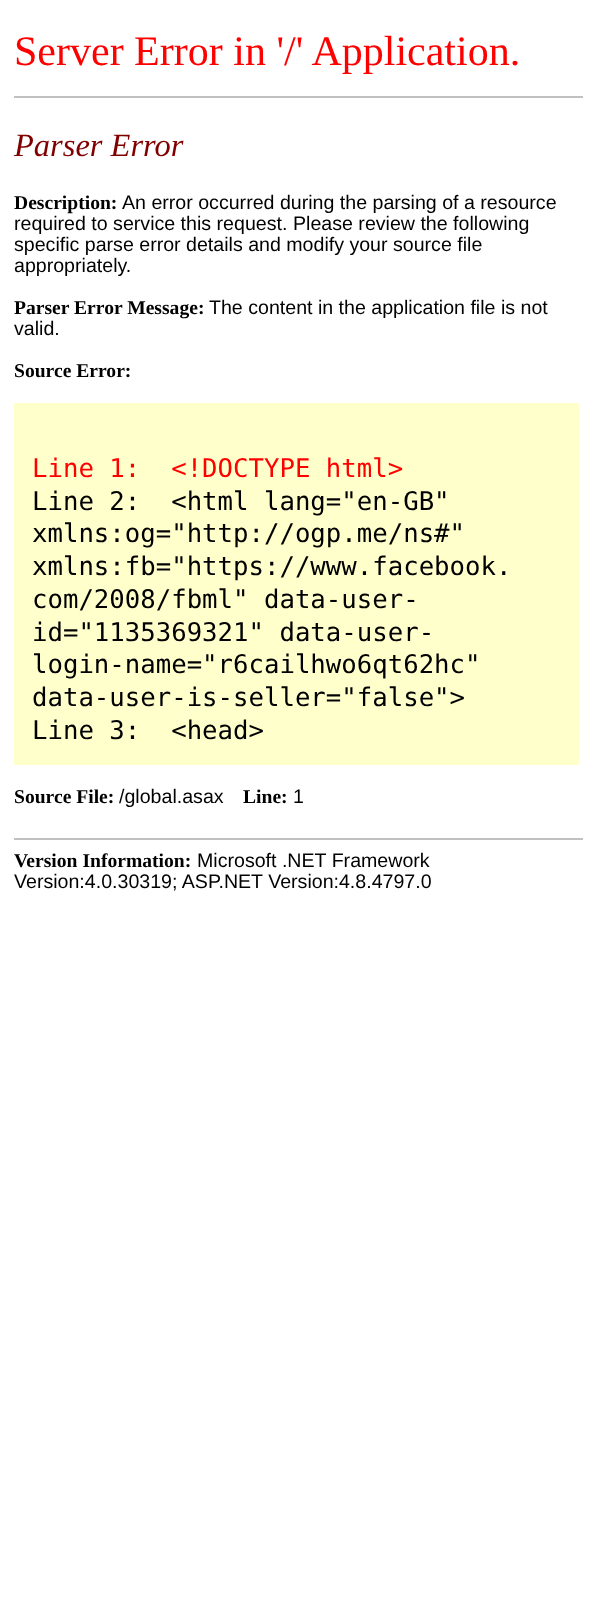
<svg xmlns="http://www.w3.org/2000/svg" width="593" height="1612">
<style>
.a{font:42px Liberation Serif;fill:#f00}
.b{font:italic 32.5px Liberation Serif;fill:#800000}
.c{font:bold 19.6px Liberation Serif;fill:#000}
.d{font:19.6px Liberation Sans;fill:#000}
.e{font:25.7px DejaVu Sans Mono;fill:#f00}
.f{font:25.7px DejaVu Sans Mono;fill:#000}
</style>
<rect width="100%" height="100%" fill="#fff"/>
<path fill="#c0c0c0" d="M14 96h569v2H14z"/>
<path fill="#ffc" d="M14 403h565v362H14z"/>
<path fill="#c0c0c0" d="M14 838h569v2H14z"/>
<text class="a" x="14" y="65">Server Error in '/' Application.</text>
<text class="b" x="14" y="156">Parser Error</text>
<text class="c" x="14" y="209">Description:</text>
<text class="d" x="122" y="209">An error occurred during the parsing of a resource</text>
<text class="d" x="14" y="230">required to service this request.</text>
<text class="d" x="293" y="230">Please review the following</text>
<text class="d" x="14" y="251">specific parse error details and modify your source file</text>
<text class="d" x="14" y="272">appropriately.</text>
<text class="c" x="14" y="314">Parser Error Message:</text>
<text class="d" x="209" y="314">The content in the application file is not</text>
<text class="d" x="14" y="335">valid.</text>
<text class="c" x="14" y="377">Source Error:</text>
<text class="e" xml:space="preserve" x="32" y="477">Line 1:  &lt;!DOCTYPE html&gt;</text>
<text class="f" xml:space="preserve" x="32" y="510">Line 2:  &lt;html lang="en-GB"</text>
<text class="f" x="32" y="542">xmlns:og="http://ogp.me/ns#"</text>
<text class="f" x="32" y="575">xmlns:fb="https://www.facebook.</text>
<text class="f" x="32" y="608">com/2008/fbml" data-user-</text>
<text class="f" x="32" y="641">id="1135369321" data-user-</text>
<text class="f" x="32" y="673">login-name="r6cailhwo6qt62hc"</text>
<text class="f" x="32" y="706">data-user-is-seller="false"&gt;</text>
<text class="f" xml:space="preserve" x="32" y="739">Line 3:  &lt;head&gt;</text>
<text class="c" x="14" y="803">Source File:</text>
<text class="d" x="119" y="803">/global.asax</text>
<text class="c" x="243" y="803">Line:</text>
<text class="d" x="293" y="803">1</text>
<text class="c" x="14" y="867">Version Information:</text>
<text class="d" x="197" y="867">Microsoft .NET Framework</text>
<text class="d" x="14" y="888">Version:4.0.30319; ASP.NET Version:4.8.4797.0</text>
</svg>
